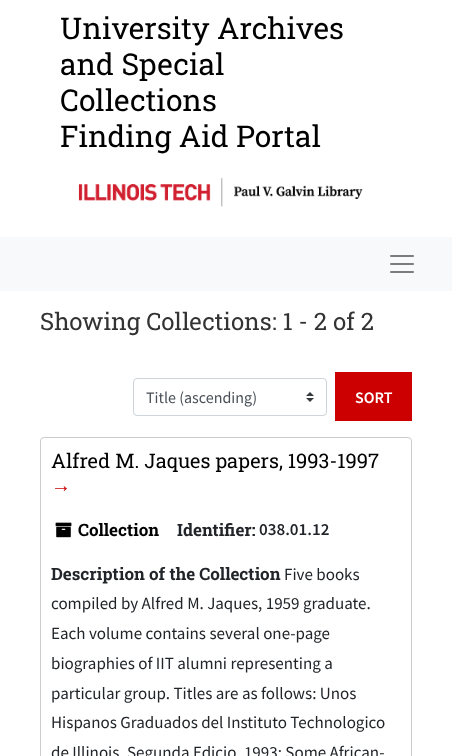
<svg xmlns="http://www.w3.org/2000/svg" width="452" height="756">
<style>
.a{font:30px Roboto Slab;fill:#000}
.b{font:24px Roboto Slab;fill:#333}
.c{font:16px Source Sans Pro;fill:#495057}
.d{font:600 16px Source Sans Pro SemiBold;fill:#fff}
.e{font:20px Roboto Slab;fill:#000}
.f{font:20px Liberation Sans;fill:#c00}
.g{font:bold 17px Roboto Slab;fill:#000}
.h{font:bold 17px Roboto Slab;fill:#212529}
.i{font:600 17px Source Sans Pro SemiBold;fill:#212529}
.j{font:17px Source Sans Pro;fill:#212529}
</style>
<rect width="100%" height="100%" fill="#fff"/>
<image href="1.png" x="78" y="177" width="285" height="30"/>
<path fill="#f8f9fa" d="M0 237h452v54H0z"/>
<image href="2.png" x="390" y="255" width="24" height="18"/>
<image href="3.png" x="306" y="392" width="8" height="10"/>
<rect fill="none" stroke="#ced4da" x="133.5" y="378.5" width="193" height="37" rx="3.5"/>
<path fill="#c00" d="M335 372h77v49H335z"/>
<rect fill="none" stroke="#ccc" x="40.5" y="437.5" width="371" height="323" rx="3.5"/>
<image href="4.png" x="55" y="522" width="17" height="16"/>
<text class="a" x="60" y="39">University Archives</text>
<text class="a" x="60" y="75">and Special</text>
<text class="a" x="60" y="111">Collections</text>
<text class="a" x="60" y="147">Finding Aid Portal</text>
<text class="b" x="40" y="330">Showing Collections: 1 - 2 of 2</text>
<text class="c" x="146" y="403">Title (ascending)</text>
<text class="d" x="355" y="403">SORT</text>
<text class="e" x="51" y="468">Alfred M. Jaques papers, 1993-1997</text>
<text class="f" x="51" y="492">→</text>
<text class="g" x="78" y="536">Collection</text>
<text class="h" x="177" y="536">Identifier:</text>
<text class="i" x="259" y="535">038.01.12</text>
<text class="h" x="51" y="580">Description of the Collection</text>
<text class="j" x="284" y="580">Five books</text>
<text class="j" x="51" y="609">compiled by Alfred M. Jaques, 1959 graduate.</text>
<text class="j" x="51" y="639">Each volume contains several one-page</text>
<text class="j" x="51" y="669">biographies of IIT alumni representing a</text>
<text class="j" x="51" y="699">particular group. Titles are as follows: Unos</text>
<text class="j" x="51" y="728">Hispanos Graduados del Instituto Technologico</text>
<text class="j" x="51" y="758">de Illinois, Segunda Edicio, 1993; Some African-</text>
</svg>
